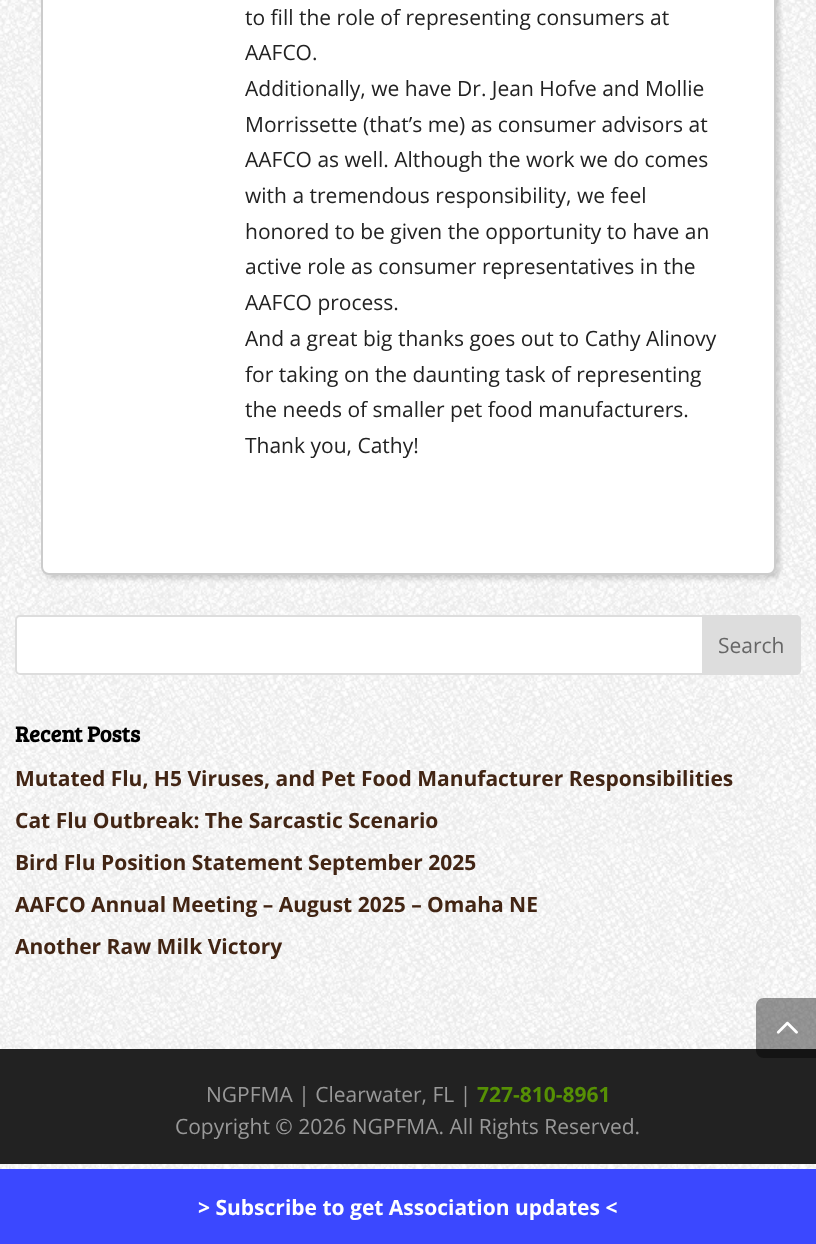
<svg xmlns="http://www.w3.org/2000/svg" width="816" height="1244">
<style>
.a{font:21px Open Sans;fill:#222}
.b{font:21px Open Sans;fill:#666}
.c{font:bold 22.5px Bree Serif;fill:#000}
.d{font:bold 21px Open Sans;fill:#422514}
.e{font:21px Open Sans;fill:#999}
.f{font:bold 21px Open Sans;fill:#569004}
.g{font:bold 21px Open Sans;fill:#fff}
</style>
<rect width="100%" height="100%" fill="#fff"/>
<image href="1.png" x="0" y="0" width="816" height="1169"/>
<rect fill="#00000026" filter="blur(2px)" x="45" y="-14" width="735" height="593" rx="8"/>
<rect fill="#fff" stroke="#ccc" stroke-width="2" x="42" y="-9" width="733" height="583" rx="7"/>
<rect fill="#fff" stroke="#ddd" stroke-width="2" x="16" y="616" width="784" height="58" rx="4"/>
<path fill="#ddd" stroke="#ddd" stroke-width="2" d="M703 616h93c2 0 4 2 4 4v50c0 2-2 4-4 4h-93z"/>
<path fill="#222" d="M0 1049h816v115H0z"/>
<path fill="#00000066" d="M764 998h52v60h-52c-4.5 0-8-3.5-8-8v-44c0-4.5 3.5-8 8-8z"/>
<image href="2.png" x="776" y="1021" width="22" height="13"/>
<path fill="#3b48ff" d="M0 1169h816v75H0z"/>
<text class="a" x="245" y="25">to fill the role of representing consumers at</text>
<text class="a" x="245" y="60">AAFCO.</text>
<text class="a" x="245" y="96">Additionally, we have Dr. Jean Hofve and Mollie</text>
<text class="a" x="245" y="132">Morrissette (that’s me) as consumer advisors at</text>
<text class="a" x="245" y="167">AAFCO as well. Although the work we do comes</text>
<text class="a" x="245" y="203">with a tremendous responsibility, we feel</text>
<text class="a" x="245" y="239">honored to be given the opportunity to have an</text>
<text class="a" x="245" y="274">active role as consumer representatives in the</text>
<text class="a" x="245" y="310">AAFCO process.</text>
<text class="a" x="245" y="346">And a great big thanks goes out to Cathy Alinovy</text>
<text class="a" x="245" y="382">for taking on the daunting task of representing</text>
<text class="a" x="245" y="417">the needs of smaller pet food manufacturers.</text>
<text class="a" x="245" y="453">Thank you, Cathy!</text>
<text class="b" x="718" y="653">Search</text>
<text class="c" x="15" y="742">Recent Posts</text>
<text class="d" x="15" y="786">Mutated Flu, H5 Viruses, and Pet Food Manufacturer Responsibilities</text>
<text class="d" x="15" y="828">Cat Flu Outbreak: The Sarcastic Scenario</text>
<text class="d" x="15" y="870">Bird Flu Position Statement September 2025</text>
<text class="d" x="15" y="912">AAFCO Annual Meeting – August 2025 – Omaha NE</text>
<text class="d" x="15" y="954">Another Raw Milk Victory</text>
<text class="e" x="206" y="1102">NGPFMA | Clearwater, FL |</text>
<text class="f" x="477" y="1102">727-810-8961</text>
<text class="e" x="175" y="1134">Copyright © 2026 NGPFMA. All Rights Reserved.</text>
<text class="g" x="198" y="1215">&gt; Subscribe to get Association updates &lt;</text>
</svg>
